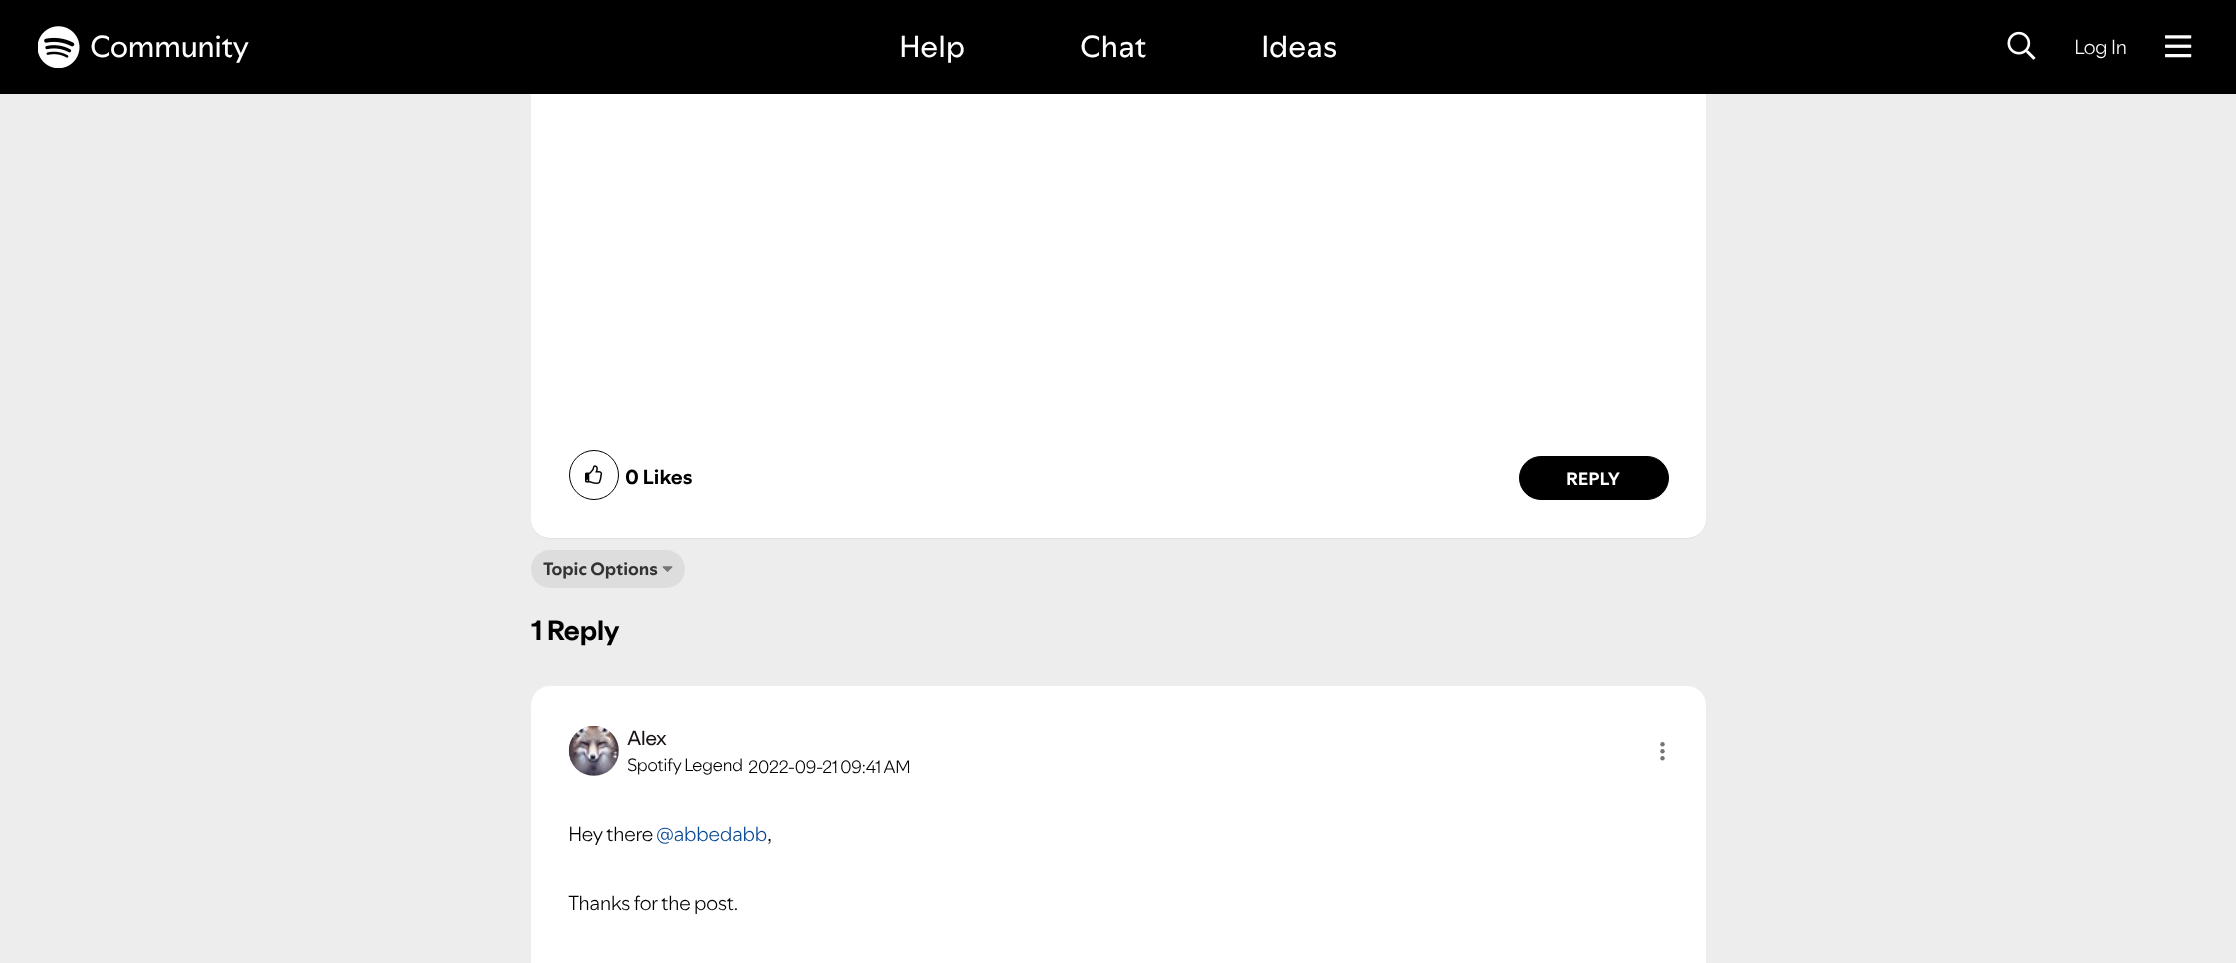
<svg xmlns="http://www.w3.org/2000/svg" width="2236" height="963">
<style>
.a{font:30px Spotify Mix;letter-spacing:-0.6px;fill:#fff}
.b{font:30px Spotify Mix;fill:#fff}
.c{font:300 20px Spotify Mix;letter-spacing:-0.6px;fill:#fff}
.d{font:bold 20px Spotify Mix;fill:#000}
.e{font:bold 17.5px Spotify Mix;fill:#fff}
.f{font:bold 17.5px Spotify Mix;fill:#333}
.g{font:bold 27.5px Spotify Mix;letter-spacing:-0.6px;fill:#000}
.h{font:20px Spotify Mix;letter-spacing:-0.6px;fill:#191414}
.i{font:300 17.5px Spotify Mix;letter-spacing:-0.6px;fill:#000}
.j{font:300 20px Spotify Mix;letter-spacing:-0.6px;fill:#000}
.k{font:300 20px Spotify Mix;letter-spacing:-0.6px;fill:#084791}
</style>
<rect width="100%" height="100%" fill="#ededed"/>
<rect fill="#0000000d" filter="blur(0.5px)" x="531" y="-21" width="1175" height="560" rx="19"/>
<rect fill="#fff" x="531" y="-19" width="1175" height="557" rx="19"/>
<path fill="#000" d="M0 0h2236v94H0z"/>
<image href="1.png" x="38" y="26" width="42" height="42"/>
<image href="2.png" x="2007" y="31" width="29" height="29"/>
<image href="3.png" x="2165" y="35" width="27" height="23"/>
<circle fill="none" stroke="#000" cx="594" cy="475" r="24.5"/>
<image href="4.png" x="585" y="465" width="18" height="19"/>
<rect fill="#000" stroke="#000" x="1519.5" y="456.5" width="149" height="43" rx="21.5"/>
<rect fill="#ddd" x="531" y="550" width="154" height="38" rx="19"/>
<image href="5.png" x="662" y="566" width="11" height="6"/>
<rect fill="#fff" x="531" y="686" width="1175" height="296" rx="19"/>
<rect fill="#c4c4c4" filter="blur(0.5px)" x="569" y="726" width="50" height="50" rx="25"/>
<image href="6.png" x="568" y="725" width="51" height="51"/>
<circle fill="#747474" cx="1662.5" cy="744.3" r="2.2"/>
<circle fill="#747474" cx="1662.5" cy="751.2" r="2.2"/>
<circle fill="#747474" cx="1662.5" cy="758.2" r="2.2"/>
<text class="a" x="90" y="57">Community</text>
<text class="b" x="899" y="57">Help</text>
<text class="b" x="1080" y="57">Chat</text>
<text class="b" x="1261" y="57">Ideas</text>
<text class="c" x="2074" y="54">Log In</text>
<text class="d" x="625" y="484">0 Likes</text>
<text class="e" x="1566" y="485">REPLY</text>
<text class="f" x="543" y="575">Topic Options</text>
<text class="g" x="531" y="640">1 Reply</text>
<text class="h" x="627" y="745">Alex</text>
<text class="i" x="627" y="771">Spotify Legend</text>
<text class="i" x="748" y="773">2022-09-21</text>
<text class="i" x="840" y="773">09:41 AM</text>
<text class="j" x="568" y="841">Hey there</text>
<text class="k" x="656" y="841">@abbedabb</text>
<text class="j" x="767" y="841">,</text>
<text class="j" x="568" y="910">Thanks for the post.</text>
</svg>
